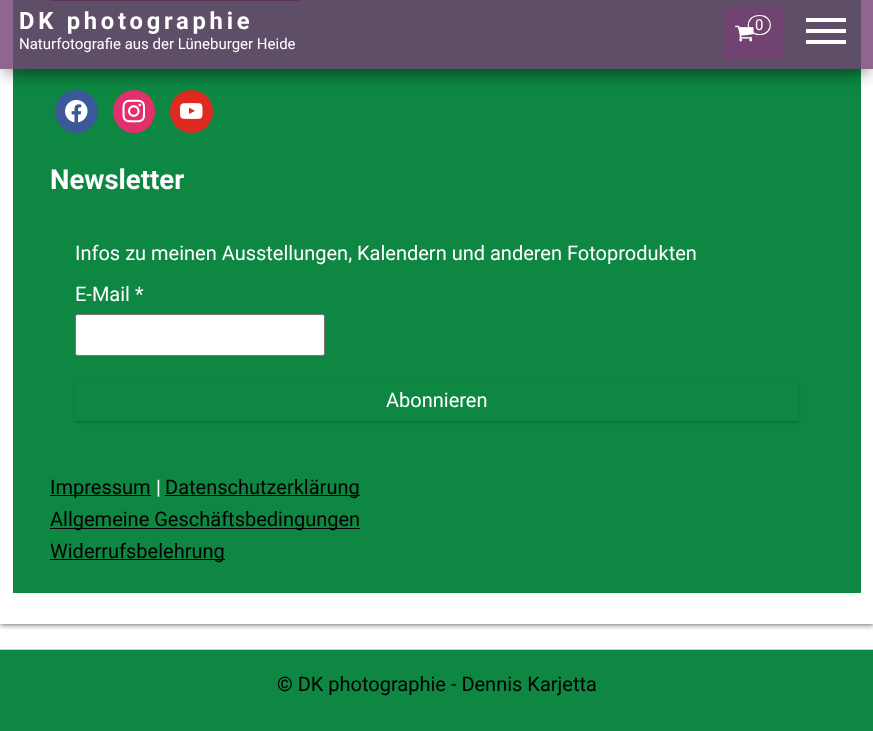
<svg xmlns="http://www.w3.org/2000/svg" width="873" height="731">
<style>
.a{font:bold 23.75px Roboto;letter-spacing:3.75px;fill:#fff}
.b{font:15px Roboto;fill:#fff}
.c{font:bold 27.5px Roboto;fill:#fff}
.d{font:20px Roboto;fill:#fff}
.e{font:20px Roboto;fill:#000}
</style>
<defs>
<clipPath id="clip1"><path d="M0 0h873v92h-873zm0 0h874v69h-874z" clip-rule="evenodd"/></clipPath>
<clipPath id="clip2"><path d="M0 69h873v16H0z"/></clipPath>
<clipPath id="clip3"><path d="M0 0h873v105h-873zm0 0h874v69h-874z" clip-rule="evenodd"/></clipPath>
</defs>
<rect width="100%" height="100%" fill="#fff"/>
<path fill="#000000bf" filter="blur(3px)" d="M0 -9h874v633H0z"/>
<path fill="#fff" d="M0 0h873v624H0z"/>
<path fill="#0d8742" d="M13 0h848v593H13z"/>
<path fill="#000" d="M50 0h249v1H50z"/>
<circle fill="#3b5998" cx="76.5" cy="111.5" r="21.5"/>
<rect fill="#e1306c" x="113" y="90" width="42" height="43" rx="21"/>
<circle fill="#e02a20" cx="191.5" cy="111.5" r="21.5"/>
<g clip-path="url(#clip1)">
<path fill="#00000033" filter="blur(6px)" d="M6 16h862v57H6z"/>
</g>
<image href="2.png" x="65" y="100" width="23" height="23"/>
<image href="3.png" x="122" y="99" width="23" height="24"/>
<image href="4.png" x="180" y="103" width="23" height="16"/>
<g clip-path="url(#clip2)">
<path fill="#0000001f" filter="blur(12.5px)" d="M0 4h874v69H0z"/>
</g>
<g clip-path="url(#clip3)">
<path fill="#0000006b" filter="blur(12.5px)" d="M15 28h844v38H15z"/>
</g>
<path fill="#744072cc" d="M0 0h873v69H0z"/>
<path fill="#704370" d="M723 8h61v51H723z"/>
<image href="1.png" x="735" y="25" width="19" height="17"/>
<path fill="none" stroke="#fff" stroke-width="1.2" d="M759.5 15.5c14.5 0 14.5 19 0 19c-15 0-15-19 0-19z"/>
<path fill="#fff" d="M806 18h40v4H806z"/>
<path fill="#fff" d="M806 29h40v4H806z"/>
<path fill="#fff" d="M806 40h40v4H806z"/>
<rect fill="#fff" stroke="#767676" x="75.5" y="314.5" width="249" height="41" rx="2"/>
<path fill="#00000026" filter="blur(1px)" d="M75 383h724v40H75z"/>
<path fill="#0d8742" d="M75 382h724v39H75z"/>
<path fill="#000" d="M50 495h101v1H50z"/>
<path fill="#000" d="M165 495h195v1H165z"/>
<path fill="#000" d="M50 528h310v1H50z"/>
<path fill="#000" d="M50 559h175v1H50z"/>
<path fill="#0d8742" d="M0 650h873v81H0z"/>
<path fill="#ccc" d="M0 649h873v1H0z"/>
<text class="a" x="19" y="29">DK photographie</text>
<text class="b" x="19" y="49">Naturfotografie aus der Lüneburger Heide</text>
<text class="b" x="755" y="30">0</text>
<text class="c" x="50" y="189">Newsletter</text>
<text class="d" x="75" y="260">Infos zu meinen Ausstellungen, Kalendern und anderen Fotoprodukten</text>
<text class="d" x="75" y="301">E-Mail *</text>
<text class="d" x="386" y="407">Abonnieren</text>
<text class="e" x="50" y="494">Impressum</text>
<text class="d" x="156" y="494">|</text>
<text class="e" x="165" y="494">Datenschutzerklärung</text>
<text class="e" x="50" y="526">Allgemeine Geschäftsbedingungen</text>
<text class="e" x="50" y="558">Widerrufsbelehrung</text>
<text class="e" x="277" y="691">© DK photographie - Dennis Karjetta</text>
</svg>
